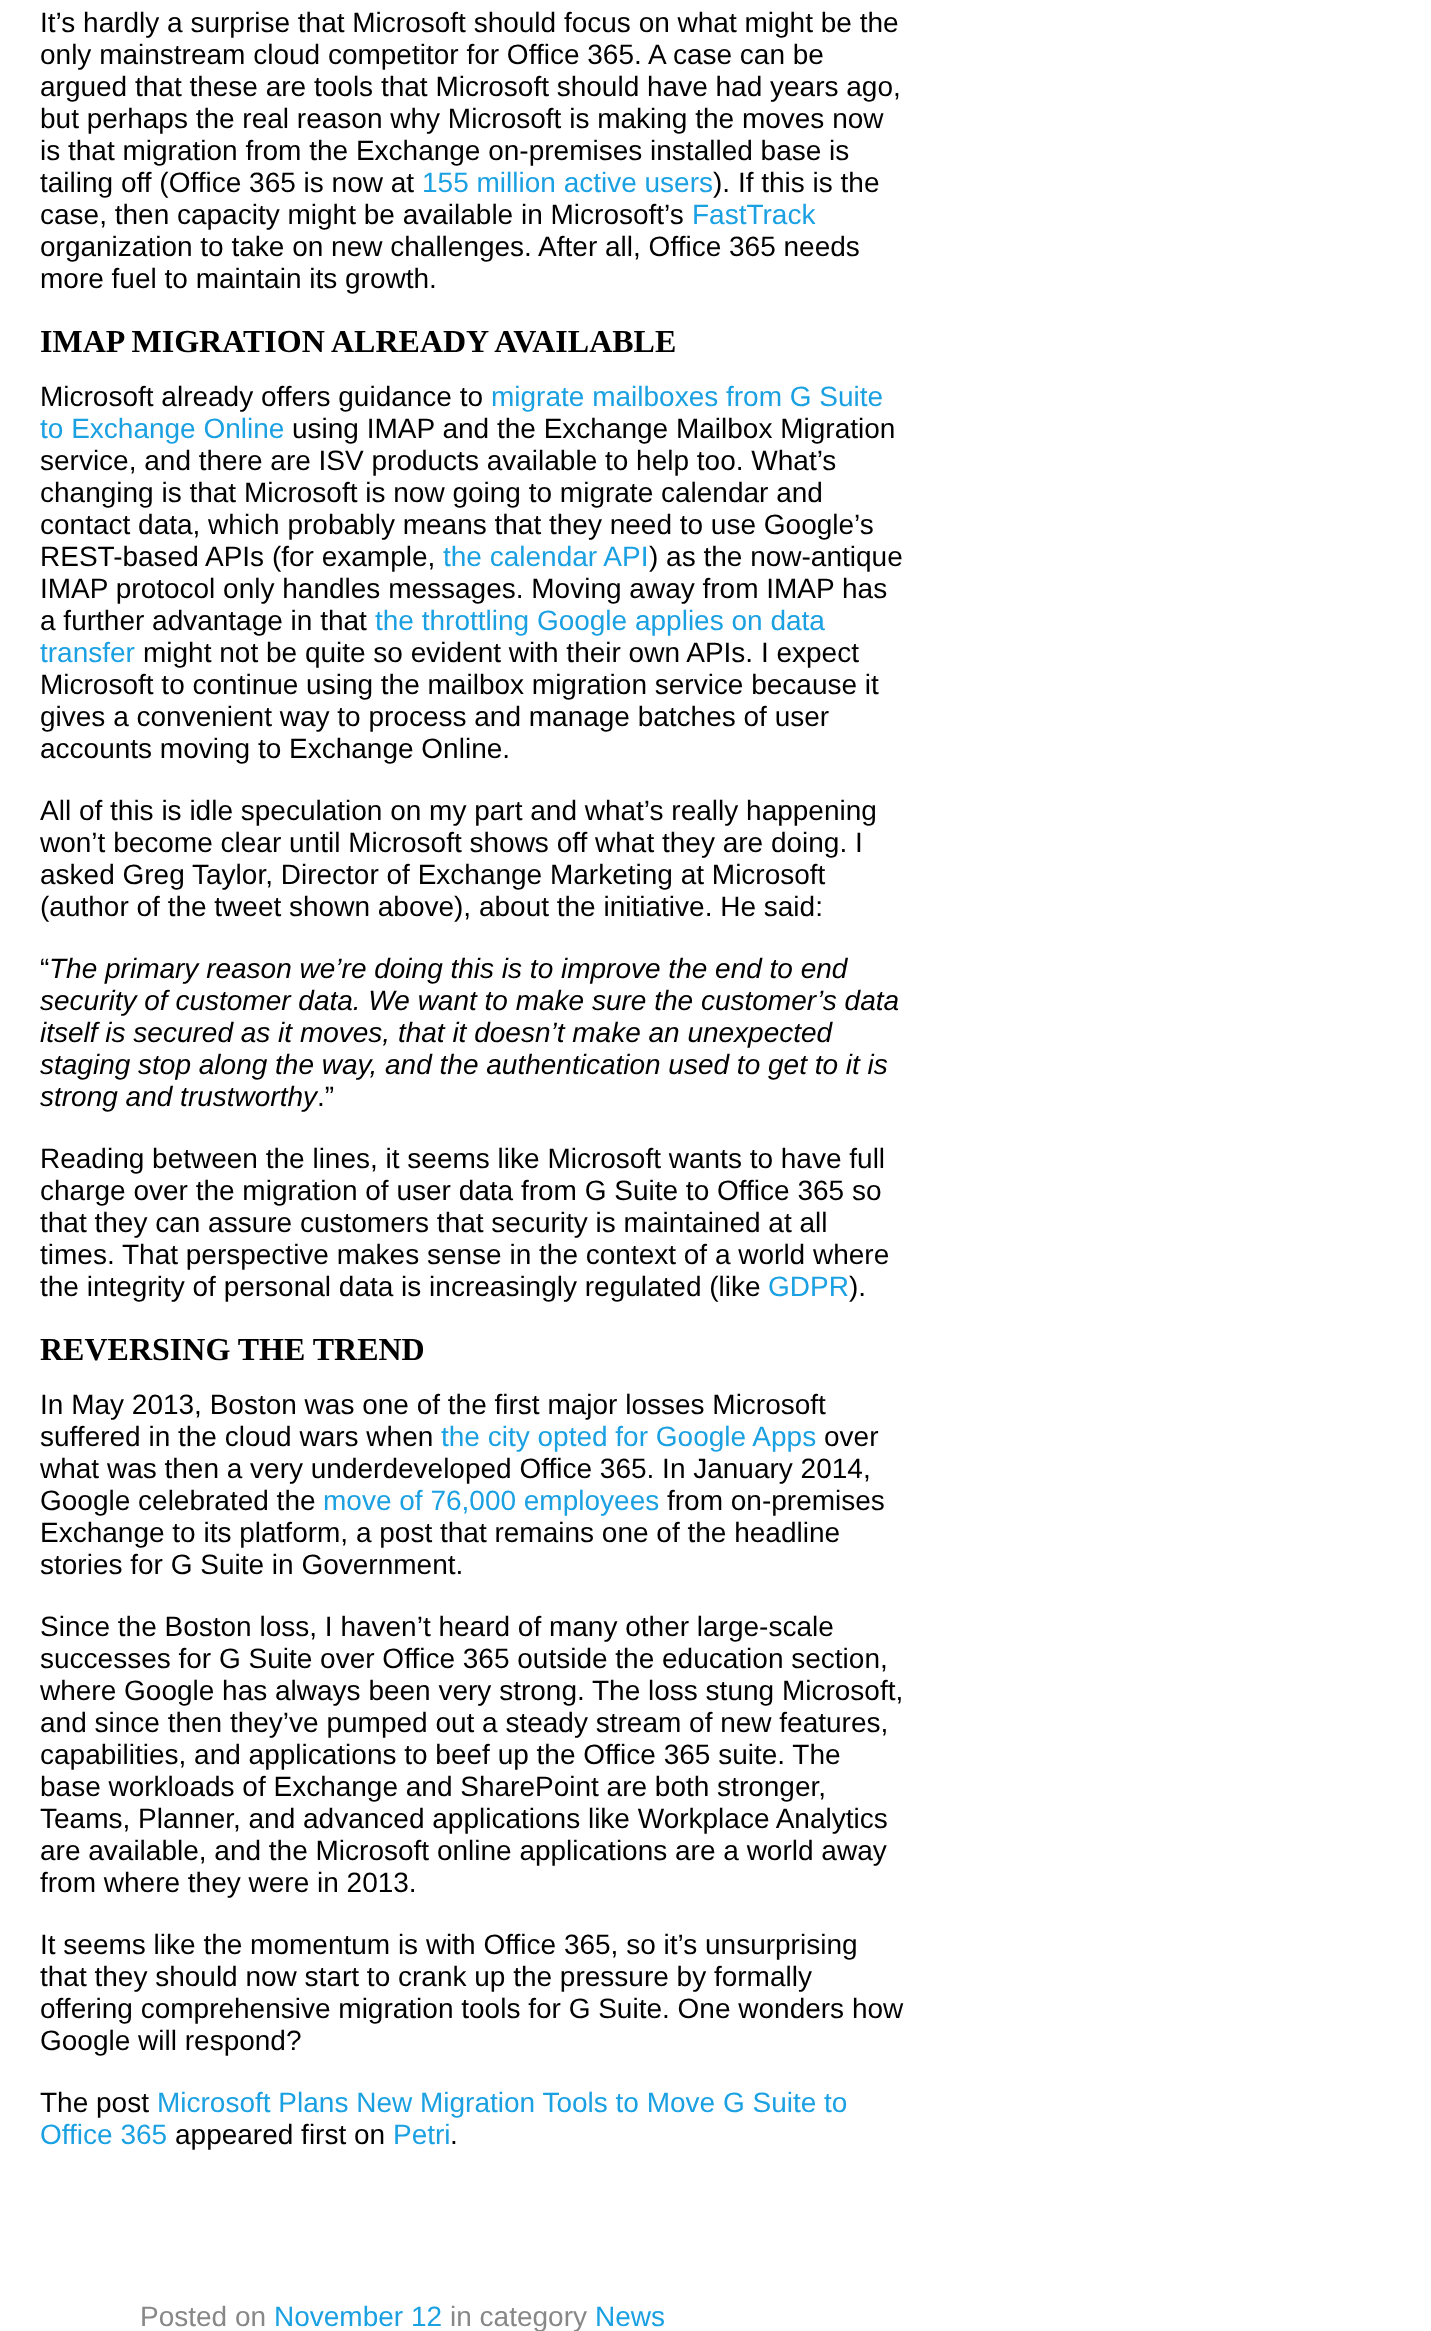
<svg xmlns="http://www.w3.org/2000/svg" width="1431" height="2331">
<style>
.a{font:28px Liberation Sans;fill:#000}
.b{font:28px Liberation Sans;fill:#1ba1e2}
.c{font:bold 32px Liberation Serif;fill:#000}
.d{font:italic 28px Liberation Sans;fill:#000}
.e{font:28px Liberation Sans;fill:#888}
</style>
<rect width="100%" height="100%" fill="#fff"/>
<text class="a" x="40" y="32">It’s hardly a surprise that Microsoft should focus on what might be the</text>
<text class="a" x="40" y="64">only mainstream cloud competitor for Office 365. A case can be</text>
<text class="a" x="40" y="96">argued that these are tools that Microsoft should have had years ago,</text>
<text class="a" x="40" y="128">but perhaps the real reason why Microsoft is making the moves now</text>
<text class="a" x="40" y="160">is that migration from the Exchange on-premises installed base is</text>
<text class="a" x="40" y="192">tailing off (Office 365 is now at</text>
<text class="b" x="422" y="192">155 million active users</text>
<text class="a" x="713" y="192">). If this is the</text>
<text class="a" x="40" y="224">case, then capacity might be available in Microsoft’s</text>
<text class="b" x="692" y="224">FastTrack</text>
<text class="a" x="40" y="256">organization to take on new challenges. After all, Office 365 needs</text>
<text class="a" x="40" y="288">more fuel to maintain its growth.</text>
<text class="c" x="40" y="352">IMAP MIGRATION ALREADY AVAILABLE</text>
<text class="a" x="40" y="406">Microsoft already offers guidance to</text>
<text class="b" x="491" y="406">migrate mailboxes from G Suite</text>
<text class="b" x="40" y="438">to Exchange Online</text>
<text class="a" x="292" y="438">using IMAP and the Exchange Mailbox Migration</text>
<text class="a" x="40" y="470">service, and there are ISV products available to help too. What’s</text>
<text class="a" x="40" y="502">changing is that Microsoft is now going to migrate calendar and</text>
<text class="a" x="40" y="534">contact data, which probably means that they need to use Google’s</text>
<text class="a" x="40" y="566">REST-based APIs (for example,</text>
<text class="b" x="443" y="566">the calendar API</text>
<text class="a" x="649" y="566">) as the now-antique</text>
<text class="a" x="40" y="598">IMAP protocol only handles messages. Moving away from IMAP has</text>
<text class="a" x="40" y="630">a further advantage in that</text>
<text class="b" x="375" y="630">the throttling Google applies on data</text>
<text class="b" x="40" y="662">transfer</text>
<text class="a" x="143" y="662">might not be quite so evident with their own APIs. I expect</text>
<text class="a" x="40" y="694">Microsoft to continue using the mailbox migration service because it</text>
<text class="a" x="40" y="726">gives a convenient way to process and manage batches of user</text>
<text class="a" x="40" y="758">accounts moving to Exchange Online.</text>
<text class="a" x="40" y="820">All of this is idle speculation on my part and what’s really happening</text>
<text class="a" x="40" y="852">won’t become clear until Microsoft shows off what they are doing. I</text>
<text class="a" x="40" y="884">asked Greg Taylor, Director of Exchange Marketing at Microsoft</text>
<text class="a" x="40" y="916">(author of the tweet shown above), about the initiative. He said:</text>
<text class="a" x="40" y="978">“</text>
<text class="d" x="49" y="978">The primary reason we’re doing this is to improve the end to end</text>
<text class="d" x="40" y="1010">security of customer data. We want to make sure the customer’s data</text>
<text class="d" x="40" y="1042">itself is secured as it moves, that it doesn’t make an unexpected</text>
<text class="d" x="40" y="1074">staging stop along the way, and the authentication used to get to it is</text>
<text class="d" x="40" y="1106">strong and trustworthy</text>
<text class="a" x="317" y="1106">.”</text>
<text class="a" x="40" y="1168">Reading between the lines, it seems like Microsoft wants to have full</text>
<text class="a" x="40" y="1200">charge over the migration of user data from G Suite to Office 365 so</text>
<text class="a" x="40" y="1232">that they can assure customers that security is maintained at all</text>
<text class="a" x="40" y="1264">times. That perspective makes sense in the context of a world where</text>
<text class="a" x="40" y="1296">the integrity of personal data is increasingly regulated (like</text>
<text class="b" x="768" y="1296">GDPR</text>
<text class="a" x="849" y="1296">).</text>
<text class="c" x="40" y="1360">REVERSING THE TREND</text>
<text class="a" x="40" y="1414">In May 2013, Boston was one of the first major losses Microsoft</text>
<text class="a" x="40" y="1446">suffered in the cloud wars when</text>
<text class="b" x="441" y="1446">the city opted for Google Apps</text>
<text class="a" x="824" y="1446">over</text>
<text class="a" x="40" y="1478">what was then a very underdeveloped Office 365. In January 2014,</text>
<text class="a" x="40" y="1510">Google celebrated the</text>
<text class="b" x="323" y="1510">move of 76,000 employees</text>
<text class="a" x="667" y="1510">from on-premises</text>
<text class="a" x="40" y="1542">Exchange to its platform, a post that remains one of the headline</text>
<text class="a" x="40" y="1574">stories for G Suite in Government.</text>
<text class="a" x="40" y="1636">Since the Boston loss, I haven’t heard of many other large-scale</text>
<text class="a" x="40" y="1668">successes for G Suite over Office 365 outside the education section,</text>
<text class="a" x="40" y="1700">where Google has always been very strong. The loss stung Microsoft,</text>
<text class="a" x="40" y="1732">and since then they’ve pumped out a steady stream of new features,</text>
<text class="a" x="40" y="1764">capabilities, and applications to beef up the Office 365 suite. The</text>
<text class="a" x="40" y="1796">base workloads of Exchange and SharePoint are both stronger,</text>
<text class="a" x="40" y="1828">Teams, Planner, and advanced applications like Workplace Analytics</text>
<text class="a" x="40" y="1860">are available, and the Microsoft online applications are a world away</text>
<text class="a" x="40" y="1892">from where they were in 2013.</text>
<text class="a" x="40" y="1954">It seems like the momentum is with Office 365, so it’s unsurprising</text>
<text class="a" x="40" y="1986">that they should now start to crank up the pressure by formally</text>
<text class="a" x="40" y="2018">offering comprehensive migration tools for G Suite. One wonders how</text>
<text class="a" x="40" y="2050">Google will respond?</text>
<text class="a" x="40" y="2112">The post</text>
<text class="b" x="157" y="2112">Microsoft Plans New Migration Tools to Move G Suite to</text>
<text class="b" x="40" y="2144">Office 365</text>
<text class="a" x="175" y="2144">appeared first on</text>
<text class="b" x="393" y="2144">Petri</text>
<text class="a" x="450" y="2144">.</text>
<text class="e" x="140" y="2326">Posted on</text>
<text class="b" x="274" y="2326">November 12</text>
<text class="e" x="450" y="2326">in category</text>
<text class="b" x="595" y="2326">News</text>
</svg>
